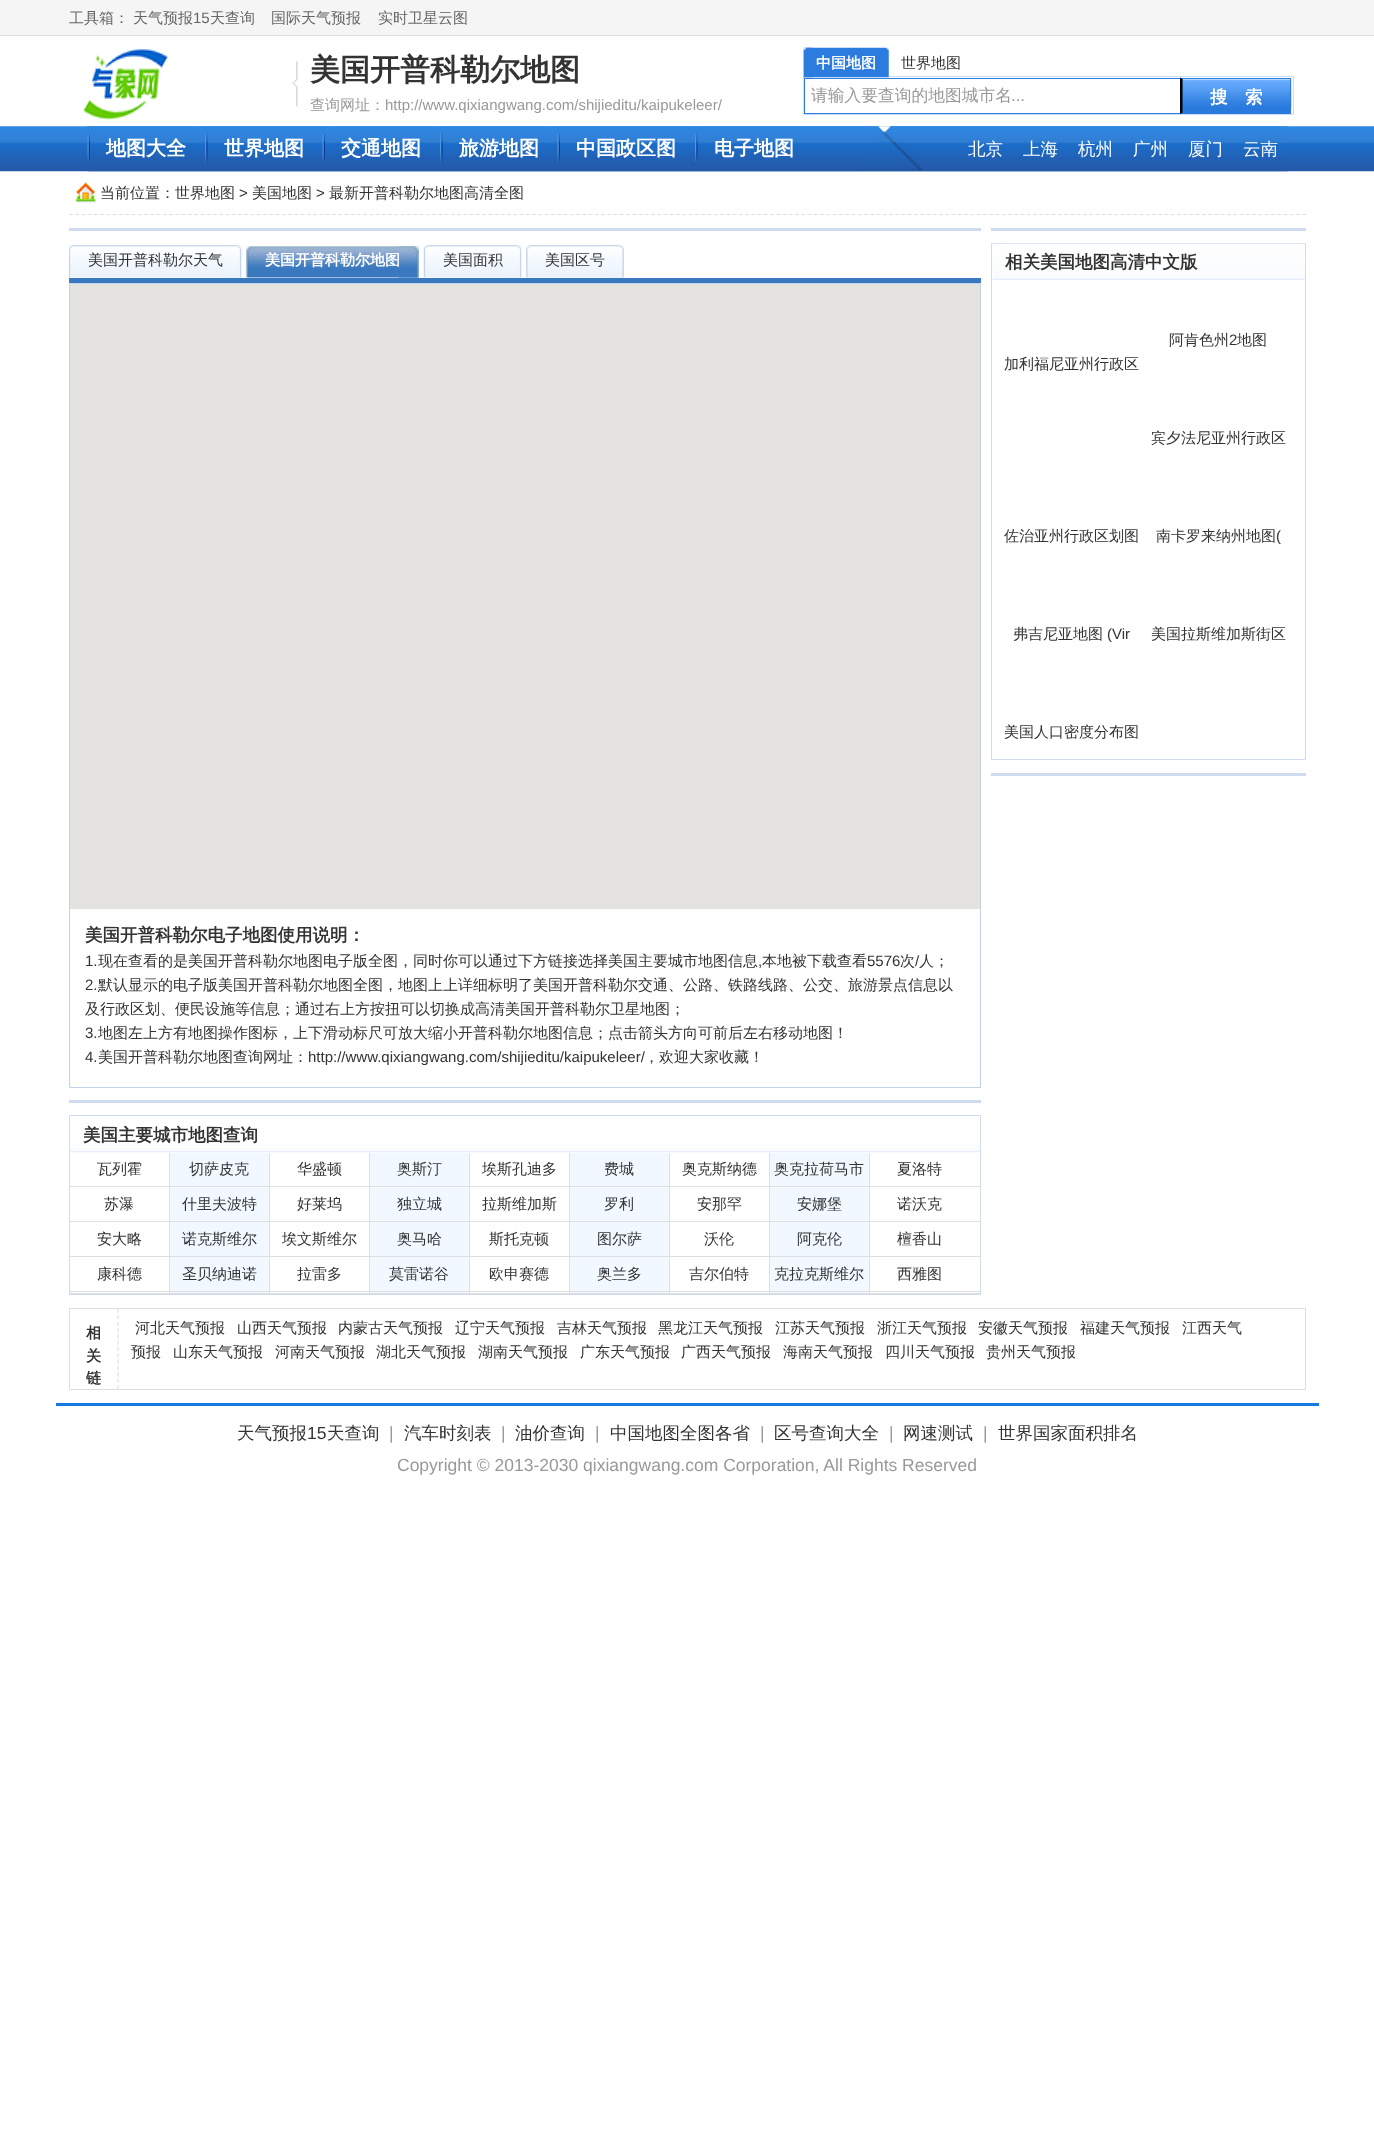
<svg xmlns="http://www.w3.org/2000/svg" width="1374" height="2144">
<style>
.a{font:500 15px WenQuanYi Zen Hei;fill:#666}
.b{font:15px Liberation Sans;fill:#666}
.c{font:bold 30px WenQuanYi Zen Hei;fill:#333}
.d{font:500 15px WenQuanYi Zen Hei;fill:#999}
.e{font:15px Liberation Sans;fill:#999}
.f{font:bold 15px WenQuanYi Zen Hei;fill:#fff}
.g{font:500 15px WenQuanYi Zen Hei;fill:#333}
.h{font:500 16.75px WenQuanYi Zen Hei;fill:#999}
.i{font:16.75px Liberation Sans;fill:#999}
.j{font:bold 17.5px WenQuanYi Zen Hei;fill:#fff}
.k{font:bold 20px WenQuanYi Zen Hei;fill:#fff}
.l{font:500 17.5px WenQuanYi Zen Hei;fill:#fff}
.m{font:15px Liberation Sans;fill:#333}
.n{font:bold 17.5px WenQuanYi Zen Hei;fill:#333}
.o{font:bold 15px WenQuanYi Zen Hei;fill:#333}
.p{font:500 17.5px WenQuanYi Zen Hei;fill:#333}
.q{font:17.5px Liberation Sans;fill:#333}
.r{font:17.5px Liberation Sans;fill:#999}
</style>
<rect width="100%" height="100%" fill="#fff"/>
<path fill="#f5f5f5" d="M0 0h1374v35H0z"/>
<path fill="#ddd" d="M0 35h1374v1H0z"/>
<image href="1.png" x="292" y="61" width="6" height="46"/>
<image href="2.png" x="83" y="49" width="85" height="71"/>
<path fill="none" stroke="#cadef7" d="M803.5 76.5h490v38H803.5z"/>
<image href="3.png" x="803" y="47" width="86" height="31"/>
<image href="4.png" x="803" y="47" width="10" height="31"/>
<path fill="#2b7cde" d="M804 78h376v1H804z"/>
<path fill="#2b7cde" d="M804 113h376v1H804z"/>
<path fill="#2b7cde" d="M804 78h1v36H804z"/>
<path fill="#297adc" d="M1180 78h110v36H1180z"/>
<image href="5.png" x="1182" y="78" width="110" height="31"/>
<path fill="#2b7cde" d="M1180 78h111l-1 1h-108z"/>
<path fill="#2b7cde" d="M1290 78h1v36H1290z"/>
<path fill="#000" d="M1180 114v-36.5l2.5 1.5v33.5z"/>
<image href="6.png" x="0" y="126" width="1374" height="46"/>
<image href="7.png" x="87" y="126" width="1201" height="46"/>
<image href="8.png" x="87" y="126" width="3" height="36"/>
<image href="9.png" x="205" y="126" width="3" height="36"/>
<image href="10.png" x="322" y="126" width="3" height="36"/>
<image href="9.png" x="440" y="126" width="3" height="36"/>
<image href="10.png" x="557" y="126" width="3" height="36"/>
<image href="9.png" x="695" y="126" width="3" height="36"/>
<path fill="none" stroke="#dfdfdf" stroke-width="1.2" stroke-dasharray="3.75 2.51" d="M69 214.5h1237"/>
<image href="11.png" x="76" y="182" width="21" height="21"/>
<path fill="#cfdcef" d="M69 228h912v3H69z"/>
<path fill="#3979bf" d="M69 278h912v5H69z"/>
<image href="12.png" x="68" y="245" width="174" height="33"/>
<image href="13.png" x="223" y="245" width="19" height="33"/>
<image href="14.png" x="246" y="246" width="173" height="32"/>
<image href="15.png" x="398" y="246" width="21" height="32"/>
<image href="16.png" x="423" y="245" width="99" height="33"/>
<image href="17.png" x="503" y="245" width="19" height="33"/>
<image href="18.png" x="526" y="245" width="98" height="33"/>
<image href="19.png" x="605" y="244" width="19" height="34"/>
<path fill="none" stroke="#c2d1e8" d="M69.5 283.5h911v804H69.5z"/>
<path fill="#e5e3df" d="M70 284h910v625H70z"/>
<path fill="#cfdcef" d="M69 1100h912v3H69z"/>
<path fill="none" stroke="#cfdcef" d="M69.5 1115.5h911v179H69.5z"/>
<image href="20.png" x="70" y="1144" width="910" height="9"/>
<path fill="#dfdfdf" d="M70 1293h910v1H70z"/>
<path fill="#dfdfdf" d="M169 1153h1v140H169z"/>
<path fill="#dfdfdf" d="M70 1186h100v1H70z"/>
<path fill="#f1f8ff" d="M170 1153h99v140H170z"/>
<path fill="#dfdfdf" d="M269 1153h1v140H269z"/>
<path fill="#dfdfdf" d="M170 1186h100v1H170z"/>
<path fill="#dfdfdf" d="M369 1153h1v140H369z"/>
<path fill="#dfdfdf" d="M270 1186h100v1H270z"/>
<path fill="#f1f8ff" d="M370 1153h99v140H370z"/>
<path fill="#dfdfdf" d="M469 1153h1v140H469z"/>
<path fill="#dfdfdf" d="M370 1186h100v1H370z"/>
<path fill="#dfdfdf" d="M569 1153h1v140H569z"/>
<path fill="#dfdfdf" d="M470 1186h100v1H470z"/>
<path fill="#f1f8ff" d="M570 1153h99v140H570z"/>
<path fill="#dfdfdf" d="M669 1153h1v140H669z"/>
<path fill="#dfdfdf" d="M570 1186h100v1H570z"/>
<path fill="#dfdfdf" d="M769 1153h1v140H769z"/>
<path fill="#dfdfdf" d="M670 1186h100v1H670z"/>
<path fill="#f1f8ff" d="M770 1153h99v140H770z"/>
<path fill="#dfdfdf" d="M869 1153h1v140H869z"/>
<path fill="#dfdfdf" d="M770 1186h210v1H770z"/>
<path fill="#dfdfdf" d="M70 1221h910v1H70z"/>
<path fill="#dfdfdf" d="M70 1256h910v1H70z"/>
<path fill="#dfdfdf" d="M70 1291h910v1H70z"/>
<path fill="#cfdcef" d="M991 228h315v3H991z"/>
<path fill="none" stroke="#cfdcef" d="M991.5 243.5h314v516H991.5z"/>
<image href="21.png" x="992" y="243" width="313" height="37"/>
<path fill="#cfdcef" d="M991 773h315v3H991z"/>
<path fill="none" stroke="#ddd" d="M69.5 1308.5h1236v81H69.5z"/>
<path fill="none" stroke="#dedede" stroke-width="1.2" stroke-dasharray="3.75 2.6" d="M118 1309v80"/>
<path fill="#1679dd" d="M56 1403h1263v3H56z"/>
<text class="a" x="69" y="23">工具箱：</text>
<text class="a" x="133" y="23">天气预报</text>
<text class="b" x="193" y="23">15</text>
<text class="a" x="210" y="23">天查询</text>
<text class="a" x="271" y="23">国际天气预报</text>
<text class="a" x="378" y="23">实时卫星云图</text>
<text class="c" x="310" y="80">美国开普科勒尔地图</text>
<text class="d" x="310" y="110">查询网址：</text>
<text class="e" x="385" y="110">http://www.qixiangwang.com/shijieditu/kaipukeleer/</text>
<text class="f" x="816" y="68">中国地图</text>
<text class="g" x="901" y="68">世界地图</text>
<text class="h" x="811" y="101">请输入要查询的地图城市名</text>
<text class="i" x="1011" y="101">...</text>
<text class="j" x="1210" y="103">搜　索</text>
<text class="k" x="106" y="155">地图大全</text>
<text class="k" x="224" y="155">世界地图</text>
<text class="k" x="341" y="155">交通地图</text>
<text class="k" x="459" y="155">旅游地图</text>
<text class="k" x="576" y="155">中国政区图</text>
<text class="k" x="714" y="155">电子地图</text>
<text class="l" x="968" y="155">北京</text>
<text class="l" x="1023" y="155">上海</text>
<text class="l" x="1078" y="155">杭州</text>
<text class="l" x="1133" y="155">广州</text>
<text class="l" x="1188" y="155">厦门</text>
<text class="l" x="1243" y="155">云南</text>
<text class="g" x="100" y="198">当前位置：世界地图</text>
<text class="m" x="239" y="198">&gt;</text>
<text class="g" x="252" y="198">美国地图</text>
<text class="m" x="316" y="198">&gt;</text>
<text class="g" x="329" y="198">最新开普科勒尔地图高清全图</text>
<text class="g" x="88" y="265">美国开普科勒尔天气</text>
<text class="f" x="265" y="265">美国开普科勒尔地图</text>
<text class="g" x="443" y="265">美国面积</text>
<text class="g" x="545" y="265">美国区号</text>
<text class="n" x="85" y="941">美国开普科勒尔电子地图使用说明：</text>
<text class="m" x="85" y="966">1.</text>
<text class="g" x="98" y="966">现在查看的是美国开普科勒尔地图电子版全图，同时你可以通过下方链接选择美国主要城市地图信息</text>
<text class="m" x="758" y="966">,</text>
<text class="g" x="762" y="966">本地被下载查看</text>
<text class="m" x="867" y="966">5576</text>
<text class="g" x="900" y="966">次</text>
<text class="m" x="915" y="966">/</text>
<text class="g" x="919" y="966">人；</text>
<text class="m" x="85" y="990">2.</text>
<text class="g" x="98" y="990">默认显示的电子版美国开普科勒尔地图全图，地图上上详细标明了美国开普科勒尔交通、公路、铁路线路、公交、旅游景点信息以</text>
<text class="g" x="85" y="1014">及行政区划、便民设施等信息；通过右上方按扭可以切换成高清美国开普科勒尔卫星地图；</text>
<text class="m" x="85" y="1038">3.</text>
<text class="g" x="98" y="1038">地图左上方有地图操作图标，上下滑动标尺可放大缩小开普科勒尔地图信息；点击箭头方向可前后左右移动地图！</text>
<text class="m" x="85" y="1062">4.</text>
<text class="g" x="98" y="1062">美国开普科勒尔地图查询网址：</text>
<text class="m" x="308" y="1062">http://www.qixiangwang.com/shijieditu/kaipukeleer/</text>
<text class="g" x="644" y="1062">，欢迎大家收藏！</text>
<text class="n" x="83" y="1141">美国主要城市地图查询</text>
<text class="g" x="97" y="1174">瓦列霍</text>
<text class="g" x="189" y="1174">切萨皮克</text>
<text class="g" x="297" y="1174">华盛顿</text>
<text class="g" x="397" y="1174">奥斯汀</text>
<text class="g" x="482" y="1174">埃斯孔迪多</text>
<text class="g" x="604" y="1174">费城</text>
<text class="g" x="682" y="1174">奥克斯纳德</text>
<text class="g" x="774" y="1174">奥克拉荷马市</text>
<text class="g" x="897" y="1174">夏洛特</text>
<text class="g" x="104" y="1209">苏瀑</text>
<text class="g" x="182" y="1209">什里夫波特</text>
<text class="g" x="297" y="1209">好莱坞</text>
<text class="g" x="397" y="1209">独立城</text>
<text class="g" x="482" y="1209">拉斯维加斯</text>
<text class="g" x="604" y="1209">罗利</text>
<text class="g" x="697" y="1209">安那罕</text>
<text class="g" x="797" y="1209">安娜堡</text>
<text class="g" x="897" y="1209">诺沃克</text>
<text class="g" x="97" y="1244">安大略</text>
<text class="g" x="182" y="1244">诺克斯维尔</text>
<text class="g" x="282" y="1244">埃文斯维尔</text>
<text class="g" x="397" y="1244">奥马哈</text>
<text class="g" x="489" y="1244">斯托克顿</text>
<text class="g" x="597" y="1244">图尔萨</text>
<text class="g" x="704" y="1244">沃伦</text>
<text class="g" x="797" y="1244">阿克伦</text>
<text class="g" x="897" y="1244">檀香山</text>
<text class="g" x="97" y="1279">康科德</text>
<text class="g" x="182" y="1279">圣贝纳迪诺</text>
<text class="g" x="297" y="1279">拉雷多</text>
<text class="g" x="389" y="1279">莫雷诺谷</text>
<text class="g" x="489" y="1279">欧申赛德</text>
<text class="g" x="597" y="1279">奥兰多</text>
<text class="g" x="689" y="1279">吉尔伯特</text>
<text class="g" x="774" y="1279">克拉克斯维尔</text>
<text class="g" x="897" y="1279">西雅图</text>
<text class="n" x="1005" y="268">相关美国地图高清中文版</text>
<text class="g" x="1169" y="345">阿肯色州</text>
<text class="m" x="1229" y="345">2</text>
<text class="g" x="1237" y="345">地图</text>
<text class="g" x="1004" y="369">加利福尼亚州行政区</text>
<text class="g" x="1151" y="443">宾夕法尼亚州行政区</text>
<text class="g" x="1004" y="541">佐治亚州行政区划图</text>
<text class="g" x="1156" y="541">南卡罗来纳州地图</text>
<text class="m" x="1276" y="541">(</text>
<text class="g" x="1013" y="639">弗吉尼亚地图</text>
<text class="m" x="1107" y="639">(Vir</text>
<text class="g" x="1151" y="639">美国拉斯维加斯街区</text>
<text class="g" x="1004" y="737">美国人口密度分布图</text>
<text class="o" x="86" y="1338">相</text>
<text class="o" x="86" y="1361">关</text>
<text class="o" x="86" y="1383">链</text>
<text class="g" x="135" y="1333">河北天气预报</text>
<text class="g" x="237" y="1333">山西天气预报</text>
<text class="g" x="338" y="1333">内蒙古天气预报</text>
<text class="g" x="455" y="1333">辽宁天气预报</text>
<text class="g" x="557" y="1333">吉林天气预报</text>
<text class="g" x="658" y="1333">黑龙江天气预报</text>
<text class="g" x="775" y="1333">江苏天气预报</text>
<text class="g" x="877" y="1333">浙江天气预报</text>
<text class="g" x="978" y="1333">安徽天气预报</text>
<text class="g" x="1080" y="1333">福建天气预报</text>
<text class="g" x="1182" y="1333">江西天气</text>
<text class="g" x="131" y="1357">预报</text>
<text class="g" x="173" y="1357">山东天气预报</text>
<text class="g" x="275" y="1357">河南天气预报</text>
<text class="g" x="376" y="1357">湖北天气预报</text>
<text class="g" x="478" y="1357">湖南天气预报</text>
<text class="g" x="580" y="1357">广东天气预报</text>
<text class="g" x="681" y="1357">广西天气预报</text>
<text class="g" x="783" y="1357">海南天气预报</text>
<text class="g" x="885" y="1357">四川天气预报</text>
<text class="g" x="986" y="1357">贵州天气预报</text>
<text class="p" x="237" y="1439">天气预报</text>
<text class="q" x="307" y="1439">15</text>
<text class="p" x="327" y="1439">天查询</text>
<text class="r" x="389" y="1439">|</text>
<text class="p" x="404" y="1439">汽车时刻表</text>
<text class="r" x="501" y="1439">|</text>
<text class="p" x="515" y="1439">油价查询</text>
<text class="r" x="595" y="1439">|</text>
<text class="p" x="610" y="1439">中国地图全图各省</text>
<text class="r" x="760" y="1439">|</text>
<text class="p" x="774" y="1439">区号查询大全</text>
<text class="r" x="889" y="1439">|</text>
<text class="p" x="903" y="1439">网速测试</text>
<text class="r" x="983" y="1439">|</text>
<text class="p" x="998" y="1439">世界国家面积排名</text>
<text class="r" x="397" y="1471">Copyright © 2013-2030 qixiangwang.com Corporation, All Rights Reserved</text>
</svg>
